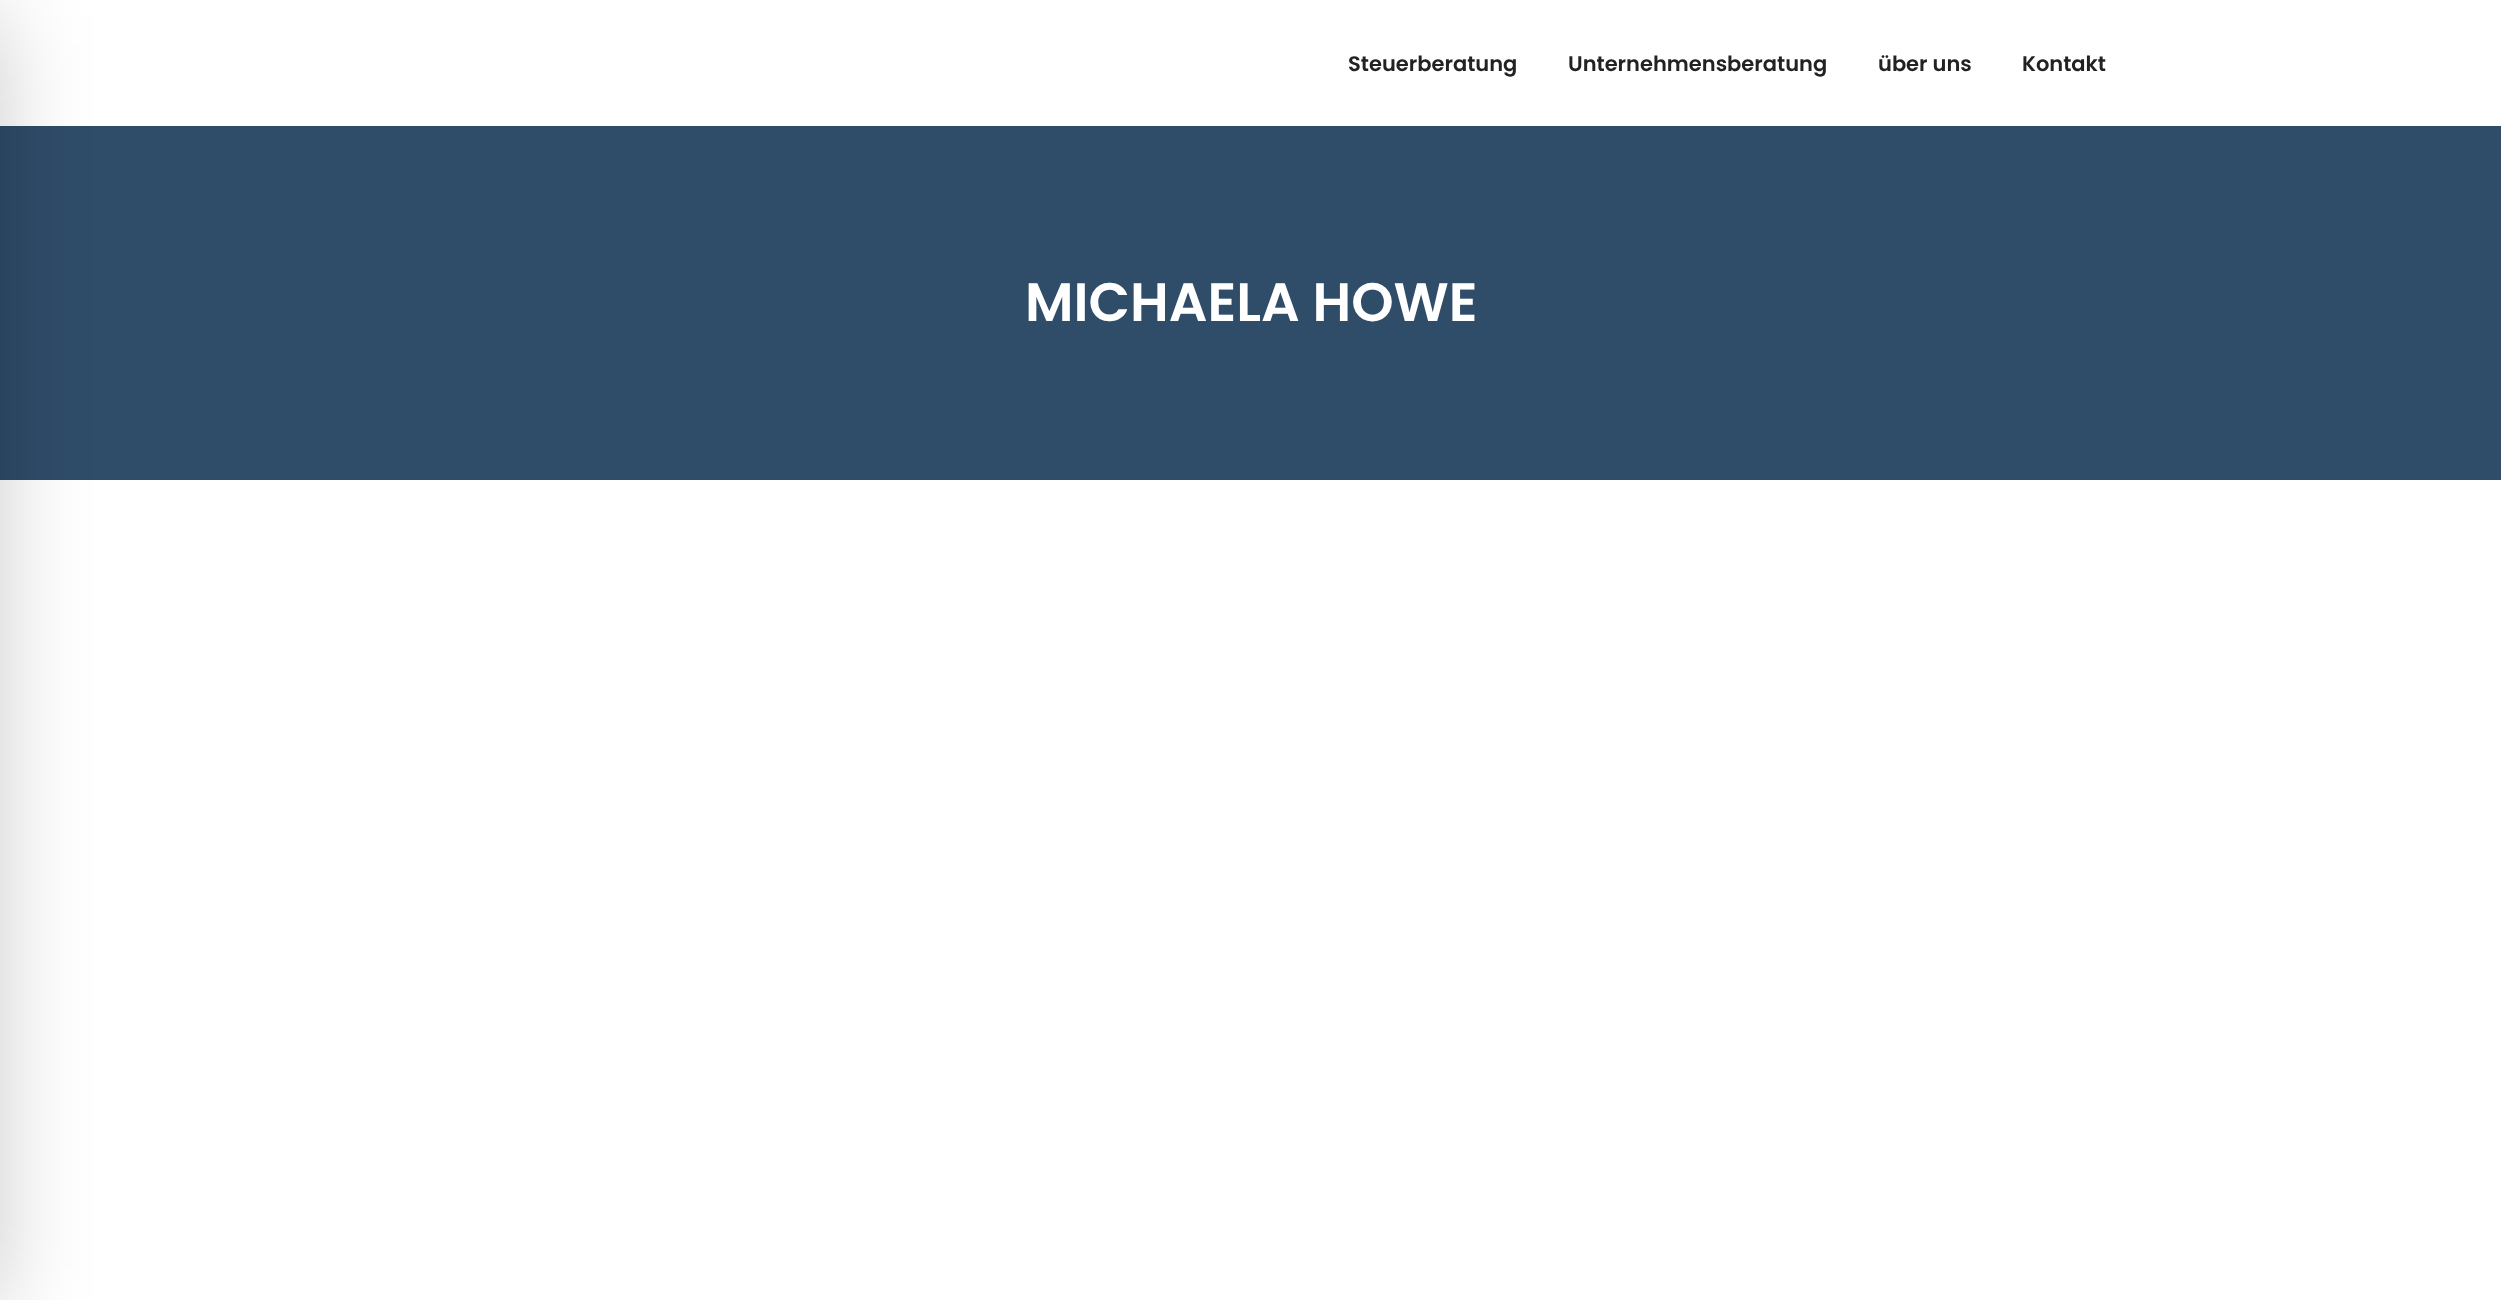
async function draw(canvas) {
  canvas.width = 2501;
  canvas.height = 1300;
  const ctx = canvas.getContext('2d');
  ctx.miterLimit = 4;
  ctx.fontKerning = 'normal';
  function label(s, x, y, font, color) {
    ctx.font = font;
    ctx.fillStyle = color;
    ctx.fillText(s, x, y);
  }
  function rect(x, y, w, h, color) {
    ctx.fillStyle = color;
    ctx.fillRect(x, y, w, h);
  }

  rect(0, 0, 2501, 1300, '#fff');
  rect(0, 126, 2501, 354, '#2f4c69');
  ctx.fillStyle = '#00000033';
  ctx.filter = 'blur(45px)';
  ctx.beginPath();
  ctx.rect(-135, 15, 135, 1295);
  ctx.fill();
  ctx.filter = 'none';
  label('Steuerberatung', 1348, 71, '600 21px Poppins', '#222');
  label('Unternehmensberatung', 1568, 71, '600 21px Poppins', '#222');
  label('über uns', 1878, 71, '600 21px Poppins', '#222');
  label('Kontakt', 2022, 71, '600 21px Poppins', '#222');
  label('MICHAELA HOWE', 1025, 321, '600 54px Poppins', '#fff');
}

draw(document.querySelector('canvas'));
